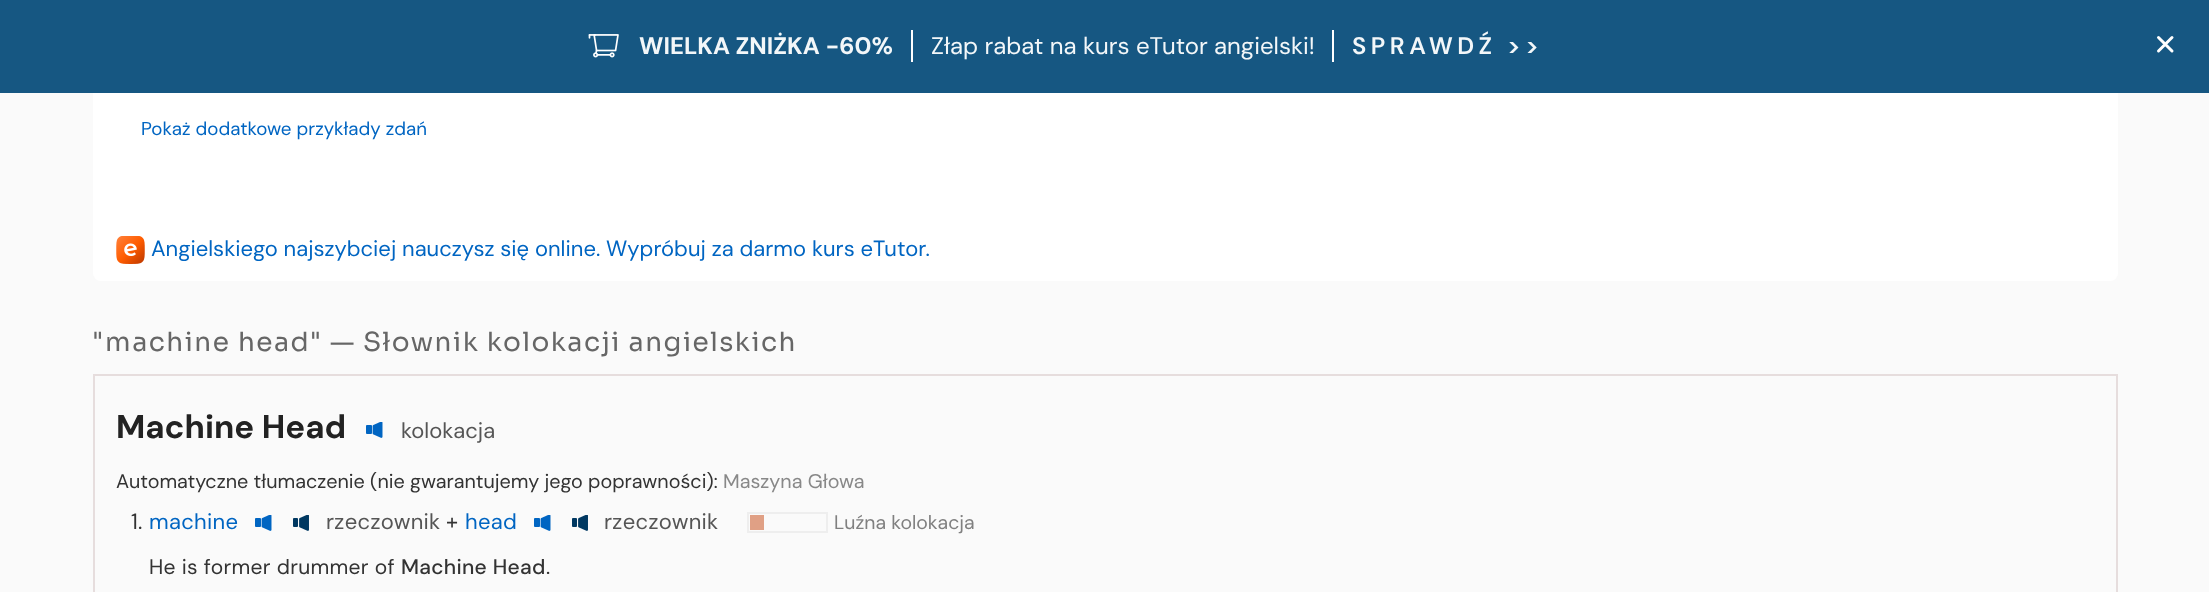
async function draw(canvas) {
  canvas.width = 2209;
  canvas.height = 592;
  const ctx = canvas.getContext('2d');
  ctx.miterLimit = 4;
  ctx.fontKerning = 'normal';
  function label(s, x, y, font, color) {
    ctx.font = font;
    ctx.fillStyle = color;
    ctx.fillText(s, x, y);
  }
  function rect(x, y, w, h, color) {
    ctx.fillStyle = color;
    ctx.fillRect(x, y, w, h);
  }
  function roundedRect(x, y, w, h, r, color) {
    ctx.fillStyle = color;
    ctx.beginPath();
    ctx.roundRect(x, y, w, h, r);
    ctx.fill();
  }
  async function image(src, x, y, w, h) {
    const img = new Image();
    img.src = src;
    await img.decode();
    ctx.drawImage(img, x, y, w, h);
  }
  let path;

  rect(0, 0, 2209, 592, '#fafafa');
  roundedRect(93, -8, 2025, 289, 8, '#fff');
  rect(0, 0, 2209, 93, '#165782');
  await image('assets/img1.png', 588, 34, 31, 24);
  label('WIELKA ZNIŻKA -60%', 639, 54, 'bold 24px DM Sans', '#f3f7f9');
  label('Złap rabat na kurs eTutor angielski!', 931, 54, '24px DM Sans', '#f3f7f9');
  rect(1332, 30, 2, 32, '#fff');
  rect(911, 30, 2, 32, '#fff');
  ctx.letterSpacing = '4.5px';
  label('SPRAWDŹ >>', 1352, 54, '600 24px DM Sans', '#f3f7f9');
  path = new Path2D('M2158.5 37.5L2172 51M2172 37.5L2158.5 51');
  ctx.strokeStyle = '#fff';
  ctx.lineWidth = 3;
  ctx.lineCap = 'round';
  ctx.stroke(path);
  ctx.letterSpacing = '0px';
  label('Pokaż dodatkowe przykłady zdań', 141, 135, '18.75px DM Sans', '#0065c2');
  await image('assets/img2.png', 116, 236, 29, 28);
  label('Angielskiego najszybciej nauczysz się online. Wypróbuj za darmo kurs eTutor.', 151, 256, '22px DM Sans', '#0065c2');
  ctx.letterSpacing = '1.5px';
  label('"machine head" — Słownik kolokacji angielskich', 92, 351, '26.4px Sora', '#666');
  ctx.strokeStyle = '#e6dddd';
  ctx.lineWidth = 2;
  ctx.strokeRect(94, 375, 2023, 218);
  ctx.letterSpacing = '0px';
  label('Machine Head', 116, 438, 'bold 33px DM Sans', '#222');
  await image('assets/img3.png', 366, 422, 17, 16);
  label('kolokacja', 401, 438, '22px DM Sans', '#555');
  label('Automatyczne tłumaczenie (nie gwarantujemy jego poprawności):', 116, 488, '19.8px DM Sans', '#333');
  label('Maszyna Głowa', 723, 488, '19.8px DM Sans', '#888');
  ctx.letterSpacing = '0.3px';
  label('1.', 131, 529, '22px DM Sans', '#333');
  label('machine', 149, 529, '22px DM Sans', '#0065c2');
  await image('assets/img3.png', 255, 515, 17, 16);
  await image('assets/img4.png', 293, 515, 16, 16);
  label('rzeczownik', 326, 529, '22px DM Sans', '#555');
  label('+', 446, 529, '22px DM Sans', '#333');
  label('head', 465, 529, '22px DM Sans', '#0065c2');
  await image('assets/img3.png', 534, 515, 17, 16);
  await image('assets/img4.png', 572, 515, 16, 16);
  label('rzeczownik', 604, 529, '22px DM Sans', '#555');
  ctx.strokeStyle = '#eee';
  ctx.strokeRect(748, 513, 79, 19);
  rect(750, 515, 14, 15, '#e0a085');
  ctx.letterSpacing = '0px';
  label('Luźna kolokacja', 834, 529, '19.5px DM Sans', '#808080');
  ctx.letterSpacing = '0.3px';
  label('He is former drummer of', 149, 574, '21px DM Sans', '#333');
  label('Machine Head', 401, 574, '500 21px DM Sans', '#333');
  label('.', 546, 574, '21px DM Sans', '#333');
}

draw(document.querySelector('canvas'));
